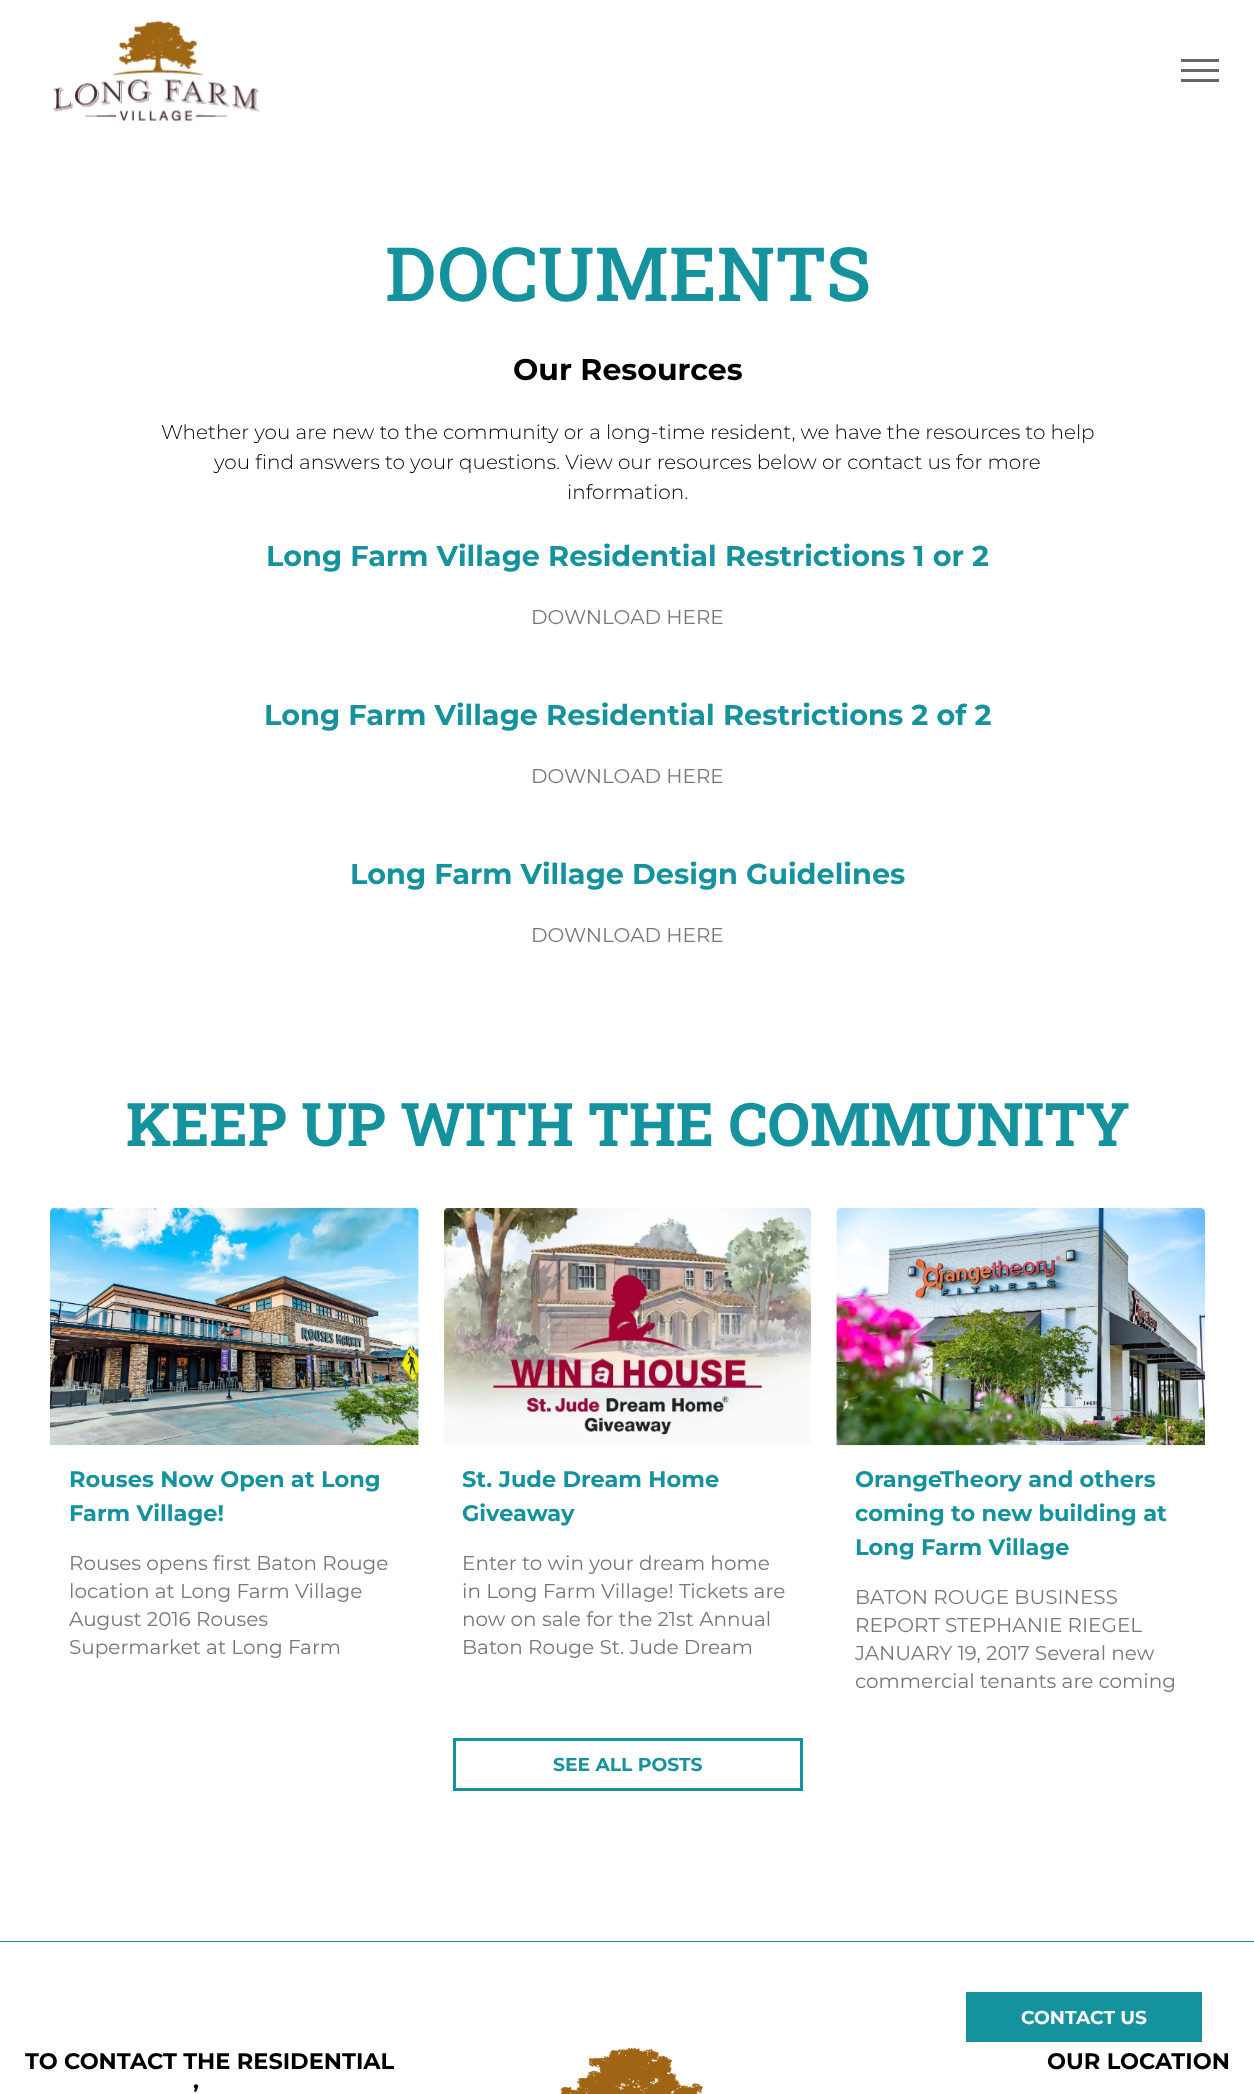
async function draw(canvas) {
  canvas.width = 1254;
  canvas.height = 2094;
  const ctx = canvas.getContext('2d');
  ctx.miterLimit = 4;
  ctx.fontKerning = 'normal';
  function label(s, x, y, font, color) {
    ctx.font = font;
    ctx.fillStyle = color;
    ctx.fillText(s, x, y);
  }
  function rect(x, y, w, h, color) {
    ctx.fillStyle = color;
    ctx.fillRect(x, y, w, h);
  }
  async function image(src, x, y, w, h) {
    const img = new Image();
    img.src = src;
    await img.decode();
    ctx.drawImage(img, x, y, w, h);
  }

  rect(0, 0, 1254, 2094, '#fff');
  await image('assets/img1.png', 53, 20, 207, 101);
  label(':', 125, 59, 'bold 24px Liberation Sans', '#fbf8f5');
  rect(1181, 59, 38, 3, '#666');
  rect(1181, 69, 38, 3, '#666');
  rect(1181, 79, 38, 3, '#666');
  label('DOCUMENTS', 385, 301, '500 75px Roboto Slab', '#14939f');
  label('Our Resources', 513, 380, 'bold 30px Montserrat', '#000');
  label('Whether you are new to the community or a long-time resident, we have the resources to help', 161, 439, '300 20px Montserrat', '#000');
  label('you find answers to your questions. View our resources below or contact us for more', 214, 469, '300 20px Montserrat', '#000');
  label('information.', 567, 499, '300 20px Montserrat', '#000');
  label('Long Farm Village Residential Restrictions 1 or 2', 266, 566, 'bold 28.75px Montserrat', '#14939f');
  label('DOWNLOAD HERE', 531, 624, '20px Montserrat', '#777');
  label('Long Farm Village Residential Restrictions 2 of 2', 264, 725, 'bold 28.75px Montserrat', '#14939f');
  label('DOWNLOAD HERE', 531, 783, '20px Montserrat', '#777');
  label('Long Farm Village Design Guidelines', 350, 884, 'bold 28.75px Montserrat', '#14939f');
  label('DOWNLOAD HERE', 531, 942, '20px Montserrat', '#777');
  label('KEEP UP WITH THE COMMUNITY', 126, 1146, 'bold 60px Roboto Slab', '#14939f');
  await image('assets/img2.png', 50, 1208, 369, 238);
  label('Rouses Now Open at Long', 69, 1487, 'bold 22.5px Montserrat', '#14939f');
  label('Farm Village!', 69, 1521, 'bold 22.5px Montserrat', '#14939f');
  label('Rouses opens first Baton Rouge', 69, 1570, '20px Montserrat', '#777');
  label('location at Long Farm Village', 69, 1598, '20px Montserrat', '#777');
  label('August 2016 Rouses', 69, 1626, '20px Montserrat', '#777');
  label('Supermarket at Long Farm', 69, 1654, '20px Montserrat', '#777');
  await image('assets/img3.png', 444, 1208, 367, 237);
  label('St. Jude Dream Home', 462, 1487, 'bold 22.5px Montserrat', '#14939f');
  label('Giveaway', 462, 1521, 'bold 22.5px Montserrat', '#14939f');
  label('Enter to win your dream home', 462, 1570, '20px Montserrat', '#777');
  label('in Long Farm Village! Tickets are', 462, 1598, '20px Montserrat', '#777');
  label('now on sale for the 21st Annual', 462, 1626, '20px Montserrat', '#777');
  label('Baton Rouge St. Jude Dream', 462, 1654, '20px Montserrat', '#777');
  await image('assets/img4.png', 836, 1208, 369, 238);
  label('OrangeTheory and others', 855, 1487, 'bold 22.5px Montserrat', '#14939f');
  label('coming to new building at', 855, 1521, 'bold 22.5px Montserrat', '#14939f');
  label('Long Farm Village', 855, 1555, 'bold 22.5px Montserrat', '#14939f');
  label('BATON ROUGE BUSINESS', 855, 1604, '20px Montserrat', '#777');
  label('REPORT STEPHANIE RIEGEL', 855, 1632, '20px Montserrat', '#777');
  label('JANUARY 19, 2017 Several new', 855, 1660, '20px Montserrat', '#777');
  label('commercial tenants are coming', 855, 1688, '20px Montserrat', '#777');
  ctx.strokeStyle = '#14939f';
  ctx.lineWidth = 3;
  ctx.strokeRect(454.5, 1739.5, 347, 50);
  label('SEE ALL POSTS', 553, 1771, 'bold 18.75px Montserrat', '#14939f');
  rect(966, 1992, 236, 50, '#14939f');
  label('CONTACT US', 1021, 2024, 'bold 18.75px Montserrat', '#fff');
  rect(0, 1941, 1254, 1, '#14939f');
  label('TO CONTACT THE RESIDENTIAL', 25, 2069, 'bold 22.5px Montserrat', '#000');
  label('’', 193, 2101, 'bold 22.5px Montserrat', '#000');
  await image('assets/img5.png', 560, 2047, 143, 47);
  label('OUR LOCATION', 1047, 2069, 'bold 22.5px Montserrat', '#000');
}

draw(document.querySelector('canvas'));
